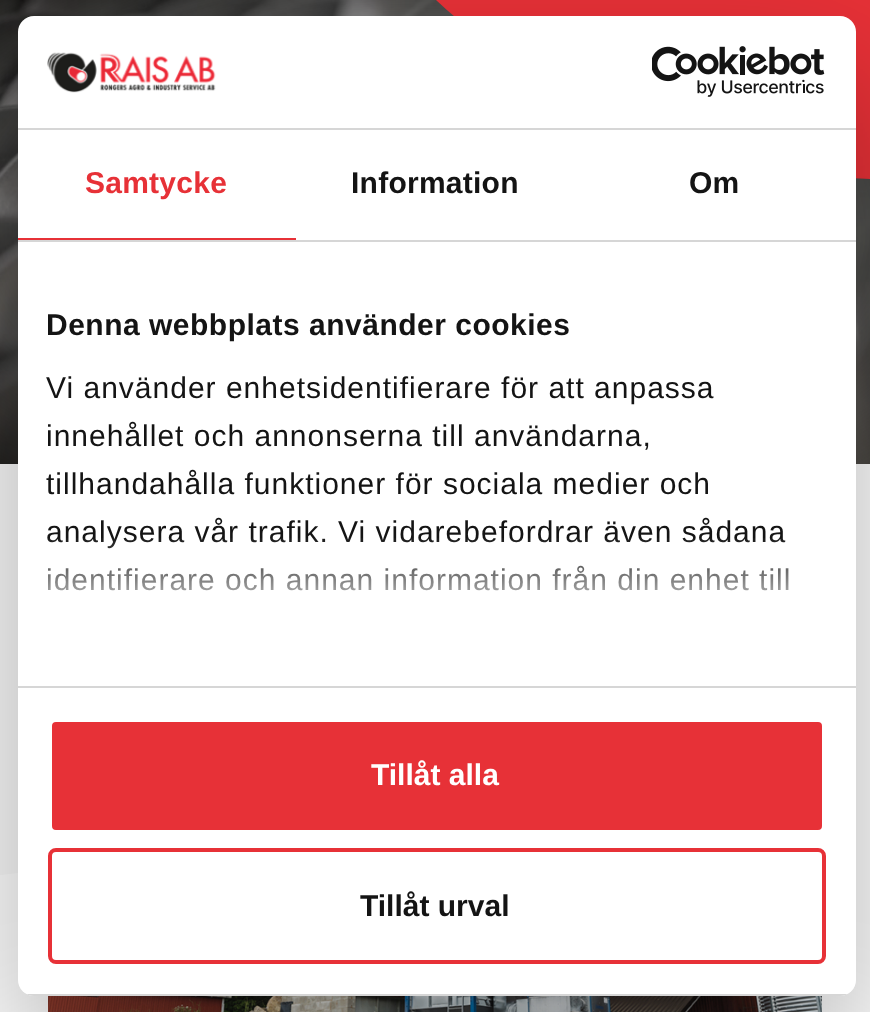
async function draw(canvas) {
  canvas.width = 870;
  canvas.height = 1012;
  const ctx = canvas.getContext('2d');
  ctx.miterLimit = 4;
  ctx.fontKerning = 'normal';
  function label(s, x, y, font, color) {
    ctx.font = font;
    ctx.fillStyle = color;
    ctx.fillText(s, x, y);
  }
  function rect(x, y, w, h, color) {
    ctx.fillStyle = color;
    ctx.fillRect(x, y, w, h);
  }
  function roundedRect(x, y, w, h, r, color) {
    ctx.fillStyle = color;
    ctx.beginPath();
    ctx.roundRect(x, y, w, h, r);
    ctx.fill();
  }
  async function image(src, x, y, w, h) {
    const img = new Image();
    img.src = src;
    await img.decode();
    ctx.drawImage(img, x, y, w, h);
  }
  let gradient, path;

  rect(0, 0, 870, 1012, '#fff');
  await image('assets/img1.png', 0, 0, 870, 464);
  ctx.fillStyle = '#e73137';
  path = new Path2D('M436 0H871V179C703 174 551 107 436 0Z');
  ctx.fill(path);
  ctx.save();
  ctx.beginPath();
  ctx.rect(0, 464, 435, 441);
  ctx.clip();
  ctx.fillStyle = '#fafafa';
  ctx.beginPath();
  ctx.arc(-41.5, 419, 458, 0, 2 * Math.PI);
  ctx.fill();
  ctx.restore();
  await image('assets/img2.png', 48, 996, 774, 16);
  ctx.fillStyle = '#0000004d';
  ctx.filter = 'blur(68px)';
  ctx.beginPath();
  ctx.roundRect(18, 80, 838, 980, 16);
  ctx.fill();
  ctx.filter = 'none';
  roundedRect(18, 16, 838, 980, 16, '#fff');
  rect(18, 128, 838, 2, '#d6d6d6');
  await image('assets/img3.png', 47, 52, 169, 41);
  await image('assets/img4.png', 652, 46, 173, 51);
  rect(18, 240, 838, 2, '#d6d6d6');
  rect(18, 238, 278, 2, '#e73137');
  ctx.letterSpacing = '0.25px';
  label('Samtycke', 85, 193, 'bold 30px Liberation Sans', '#e73137');
  label('Information', 351, 193, 'bold 30px Liberation Sans', '#141414');
  label('Om', 689, 193, 'bold 30px Liberation Sans', '#141414');
  rect(18, 686, 838, 2, '#d6d6d6');
  ctx.letterSpacing = '0.5px';
  label('Denna webbplats använder cookies', 46, 335, 'bold 30px Liberation Sans', '#141414');
  ctx.letterSpacing = '1px';
  label('Vi använder enhetsidentifierare för att anpassa', 46, 398, '30px Liberation Sans', '#141414');
  label('innehållet och annonserna till användarna,', 46, 446, '30px Liberation Sans', '#141414');
  label('tillhandahålla funktioner för sociala medier och', 46, 494, '30px Liberation Sans', '#141414');
  label('analysera vår trafik. Vi vidarebefordrar även sådana', 46, 542, '30px Liberation Sans', '#141414');
  label('identifierare och annan information från din enhet till', 46, 590, '30px Liberation Sans', '#141414');
  gradient = ctx.createLinearGradient(423, 686, 423, 536);
  gradient.addColorStop(0, '#fff');
  gradient.addColorStop(0.5, '#ffffffcc');
  gradient.addColorStop(1, '#ffffff00');
  ctx.fillStyle = gradient;
  ctx.fillRect(47, 538, 742, 53);
  ctx.save();
  ctx.beginPath();
  ctx.roundRect(18, 16, 838, 980, 16);
  ctx.clip();
  rect(18, 994, 838, 2, '#d6d6d6');
  ctx.restore();
  ctx.fillStyle = '#e73137';
  ctx.beginPath();
  ctx.roundRect(50, 720, 774, 112, 6);
  ctx.fill();
  ctx.strokeStyle = '#fff';
  ctx.lineWidth = 4;
  ctx.stroke();
  ctx.letterSpacing = '0px';
  label('Tillåt alla', 371, 785, 'bold 30px Liberation Sans', '#fff');
  ctx.beginPath();
  ctx.roundRect(50, 850, 774, 112, 6);
  ctx.strokeStyle = '#e73137';
  ctx.stroke();
  label('Tillåt urval', 360, 916, 'bold 30px Liberation Sans', '#141414');
}

draw(document.querySelector('canvas'));
